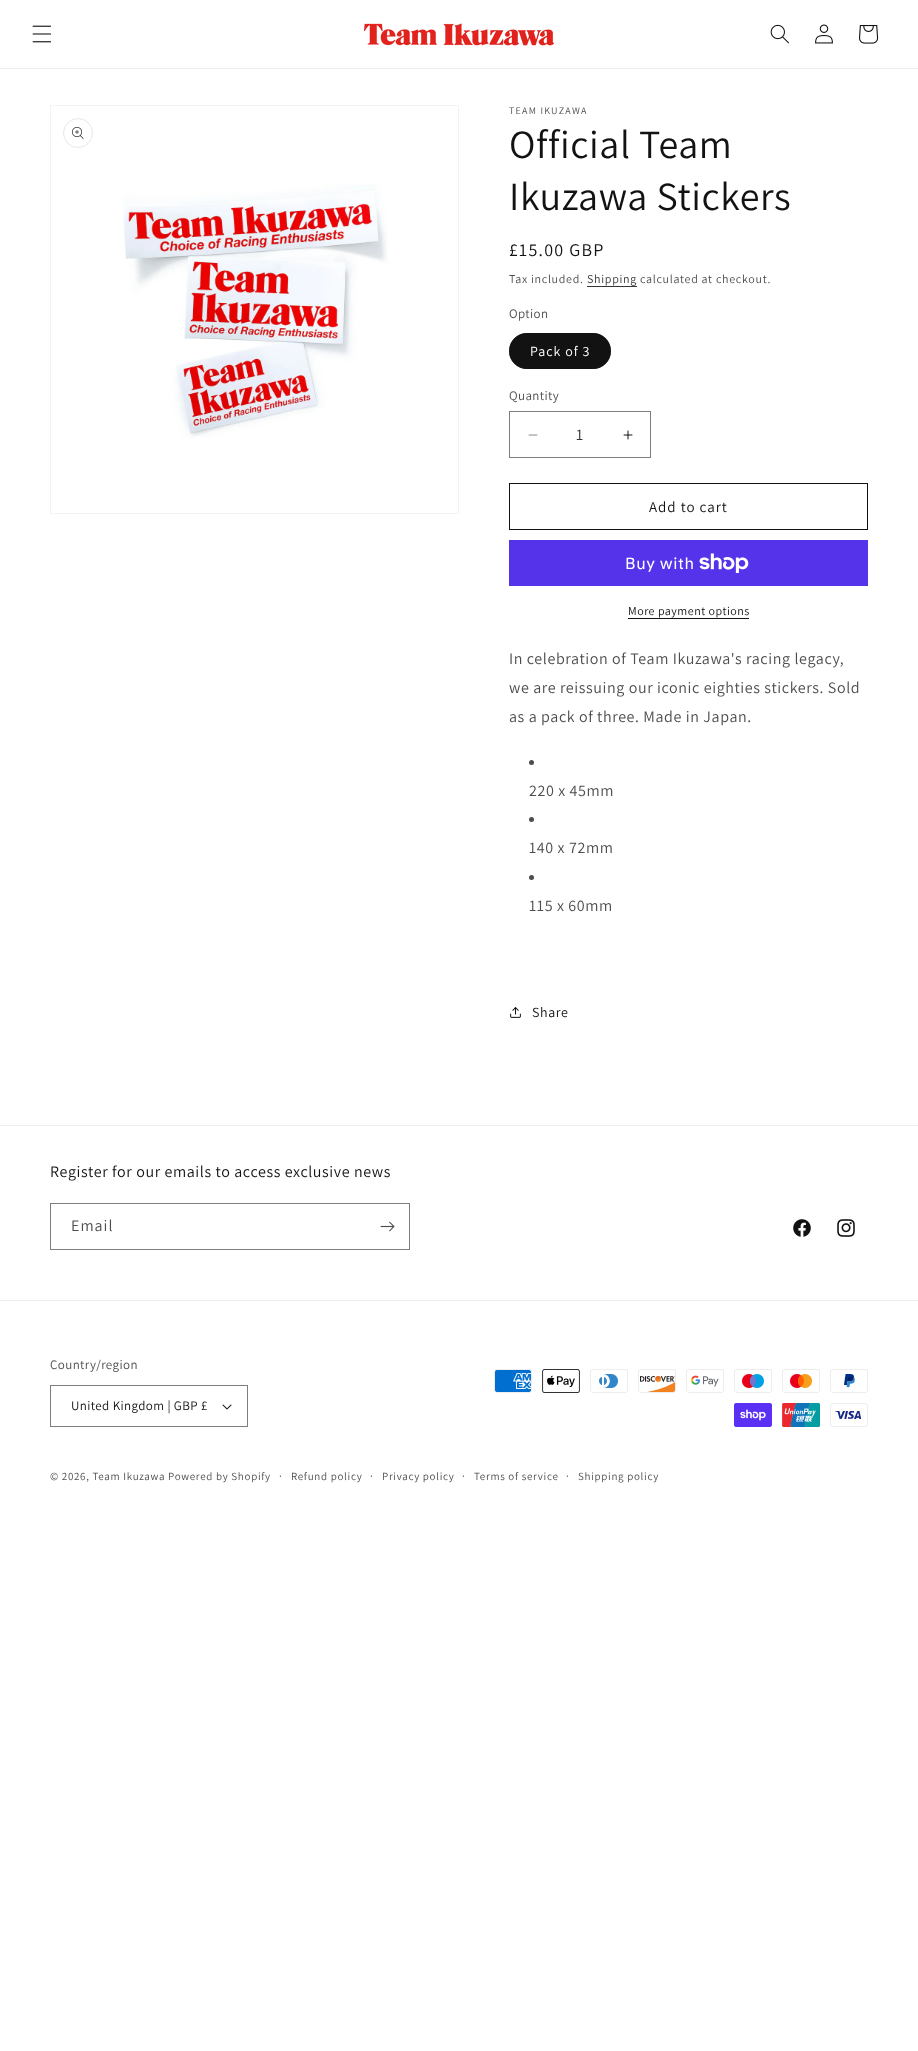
async function draw(canvas) {
  canvas.width = 918;
  canvas.height = 2051;
  const ctx = canvas.getContext('2d');
  ctx.miterLimit = 4;
  ctx.fontKerning = 'normal';
  function label(s, x, y, font, color) {
    ctx.font = font;
    ctx.fillStyle = color;
    ctx.fillText(s, x, y);
  }
  function rect(x, y, w, h, color) {
    ctx.fillStyle = color;
    ctx.fillRect(x, y, w, h);
  }
  function roundedRect(x, y, w, h, r, color) {
    ctx.fillStyle = color;
    ctx.beginPath();
    ctx.roundRect(x, y, w, h, r);
    ctx.fill();
  }
  async function image(src, x, y, w, h) {
    const img = new Image();
    img.src = src;
    await img.decode();
    ctx.drawImage(img, x, y, w, h);
  }

  rect(0, 0, 918, 2051, '#fff');
  rect(0, 68, 918, 1, '#ececec');
  await image('assets/img1.png', 32, 25, 20, 18);
  await image('assets/img2.png', 364, 23, 190, 23);
  await image('assets/img3.png', 770, 24, 19, 20);
  await image('assets/img4.png', 815, 24, 18, 20);
  await image('assets/img5.png', 859, 25, 20, 19);
  ctx.strokeStyle = '#f3f3f3';
  ctx.strokeRect(50.5, 105.5, 408, 408);
  ctx.beginPath();
  ctx.arc(78, 133, 14.5, 0, 2 * Math.PI);
  ctx.strokeStyle = '#e7e7e7';
  ctx.stroke();
  await image('assets/img6.png', 72, 127, 12, 12);
  await image('assets/img7.png', 123, 184, 265, 254);
  ctx.letterSpacing = '1.25px';
  label('TEAM IKUZAWA', 509, 114, '10px Assistant', '#4d4d4d');
  ctx.letterSpacing = '0.6px';
  label('Official Team', 509, 158, '40px Assistant', '#121212');
  label('Ikuzawa Stickers', 509, 210, '40px Assistant', '#121212');
  ctx.letterSpacing = '1.25px';
  label('£15.00 GBP', 509, 256, '18px Assistant', '#121212');
  ctx.letterSpacing = '0.7px';
  label('Tax included.', 509, 283, '12px Assistant', '#4d4d4d');
  label('Shipping', 587, 283, '12px Assistant', '#363636');
  rect(587, 286, 50, 1, '#363636');
  label('calculated at checkout.', 640, 283, '12px Assistant', '#4d4d4d');
  ctx.letterSpacing = '0.4px';
  label('Option', 509, 318, '13px Assistant', '#4d4d4d');
  roundedRect(509, 333, 102, 36, 18, '#121212');
  ctx.beginPath();
  ctx.roundRect(509.5, 333.5, 101, 35, 17.5);
  ctx.strokeStyle = '#1212128c';
  ctx.stroke();
  ctx.letterSpacing = '1px';
  label('Pack of 3', 530, 356, '14px Assistant', '#fff');
  ctx.letterSpacing = '0.4px';
  label('Quantity', 509, 400, '13px Assistant', '#4d4d4d');
  await image('assets/img8.png', 528, 434, 10, 2);
  await image('assets/img9.png', 623, 430, 10, 10);
  ctx.strokeStyle = '#7d7d7d';
  ctx.strokeRect(509.5, 411.5, 141, 46);
  ctx.letterSpacing = '0px';
  label('1', 576, 440, '16px Assistant', '#363636');
  ctx.strokeStyle = '#121212';
  ctx.strokeRect(509.5, 483.5, 358, 46);
  ctx.letterSpacing = '1px';
  label('Add to cart', 649, 512, '15px Assistant', '#121212');
  rect(509, 540, 359, 46, '#5433eb');
  ctx.letterSpacing = '0.6px';
  label('Buy with', 625, 569, '16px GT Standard', '#fff');
  await image('assets/img10.png', 699, 553, 50, 20);
  ctx.letterSpacing = '0.5px';
  label('More payment options', 628, 615, '12px Assistant', '#121212');
  rect(628, 618, 121, 1, '#121212');
  ctx.letterSpacing = '0.6px';
  label('In celebration of Team Ikuzawa\'s racing legacy,', 509, 664, '16px Assistant', '#4d4d4d');
  label('we are reissuing our iconic eighties stickers. Sold', 509, 693, '16px Assistant', '#4d4d4d');
  label('as a pack of three. Made in Japan.', 509, 722, '16px Assistant', '#4d4d4d');
  ctx.beginPath();
  ctx.arc(531.5, 762.5, 2.5, 0, 2 * Math.PI);
  ctx.fill();
  label('220 x 45mm', 529, 796, '16px Assistant', '#4d4d4d');
  ctx.beginPath();
  ctx.arc(531.5, 819.5, 2.5, 0, 2 * Math.PI);
  ctx.fill();
  label('140 x 72mm', 529, 853, '16px Assistant', '#4d4d4d');
  ctx.beginPath();
  ctx.arc(531.5, 877.5, 2.5, 0, 2 * Math.PI);
  ctx.fill();
  label('115 x 60mm', 529, 911, '16px Assistant', '#4d4d4d');
  await image('assets/img11.png', 510, 1007, 11, 11);
  label('Share', 532, 1017, '14px Assistant', '#121212');
  rect(0, 1125, 918, 1, '#ececec');
  label('Register for our emails to access exclusive news', 50, 1177, '16px Assistant', '#121212');
  ctx.strokeStyle = '#7d7d7d';
  ctx.strokeRect(50.5, 1203.5, 359, 46);
  ctx.letterSpacing = '1px';
  label('Email', 71, 1231, '16px Assistant', '#4d4d4d');
  await image('assets/img12.png', 380, 1221, 15, 11);
  await image('assets/img13.png', 793, 1219, 18, 18);
  await image('assets/img14.png', 837, 1219, 18, 18);
  rect(0, 1300, 918, 1, '#ececec');
  ctx.letterSpacing = '0.4px';
  label('Country/region', 50, 1369, '13px Assistant', '#4d4d4d');
  await image('assets/img15.png', 222, 1404, 10, 6);
  ctx.strokeRect(50.5, 1385.5, 197, 41);
  label('United Kingdom | GBP £', 71, 1410, '13px Assistant', '#121212');
  await image('assets/img16.png', 494, 1369, 38, 24);
  await image('assets/img17.png', 542, 1369, 38, 24);
  await image('assets/img18.png', 590, 1369, 38, 24);
  await image('assets/img19.png', 638, 1369, 38, 24);
  await image('assets/img20.png', 686, 1369, 38, 24);
  await image('assets/img21.png', 734, 1369, 38, 24);
  await image('assets/img22.png', 782, 1369, 38, 24);
  await image('assets/img23.png', 830, 1369, 38, 24);
  await image('assets/img24.png', 734, 1403, 38, 24);
  await image('assets/img25.png', 782, 1403, 38, 24);
  await image('assets/img26.png', 830, 1403, 38, 24);
  ctx.letterSpacing = '0.7px';
  label('© 2026, Team Ikuzawa Powered by Shopify', 50, 1480, '11px Assistant', '#4d4d4d');
  label('·', 279, 1480, '12px Assistant', '#4d4d4d');
  label('Refund policy', 291, 1480, '11px Assistant', '#4d4d4d');
  label('·', 370, 1480, '12px Assistant', '#4d4d4d');
  label('Privacy policy', 382, 1480, '11px Assistant', '#4d4d4d');
  label('·', 462, 1480, '12px Assistant', '#4d4d4d');
  label('Terms of service', 474, 1480, '11px Assistant', '#4d4d4d');
  label('·', 566, 1480, '12px Assistant', '#4d4d4d');
  label('Shipping policy', 578, 1480, '11px Assistant', '#4d4d4d');
}

draw(document.querySelector('canvas'));
